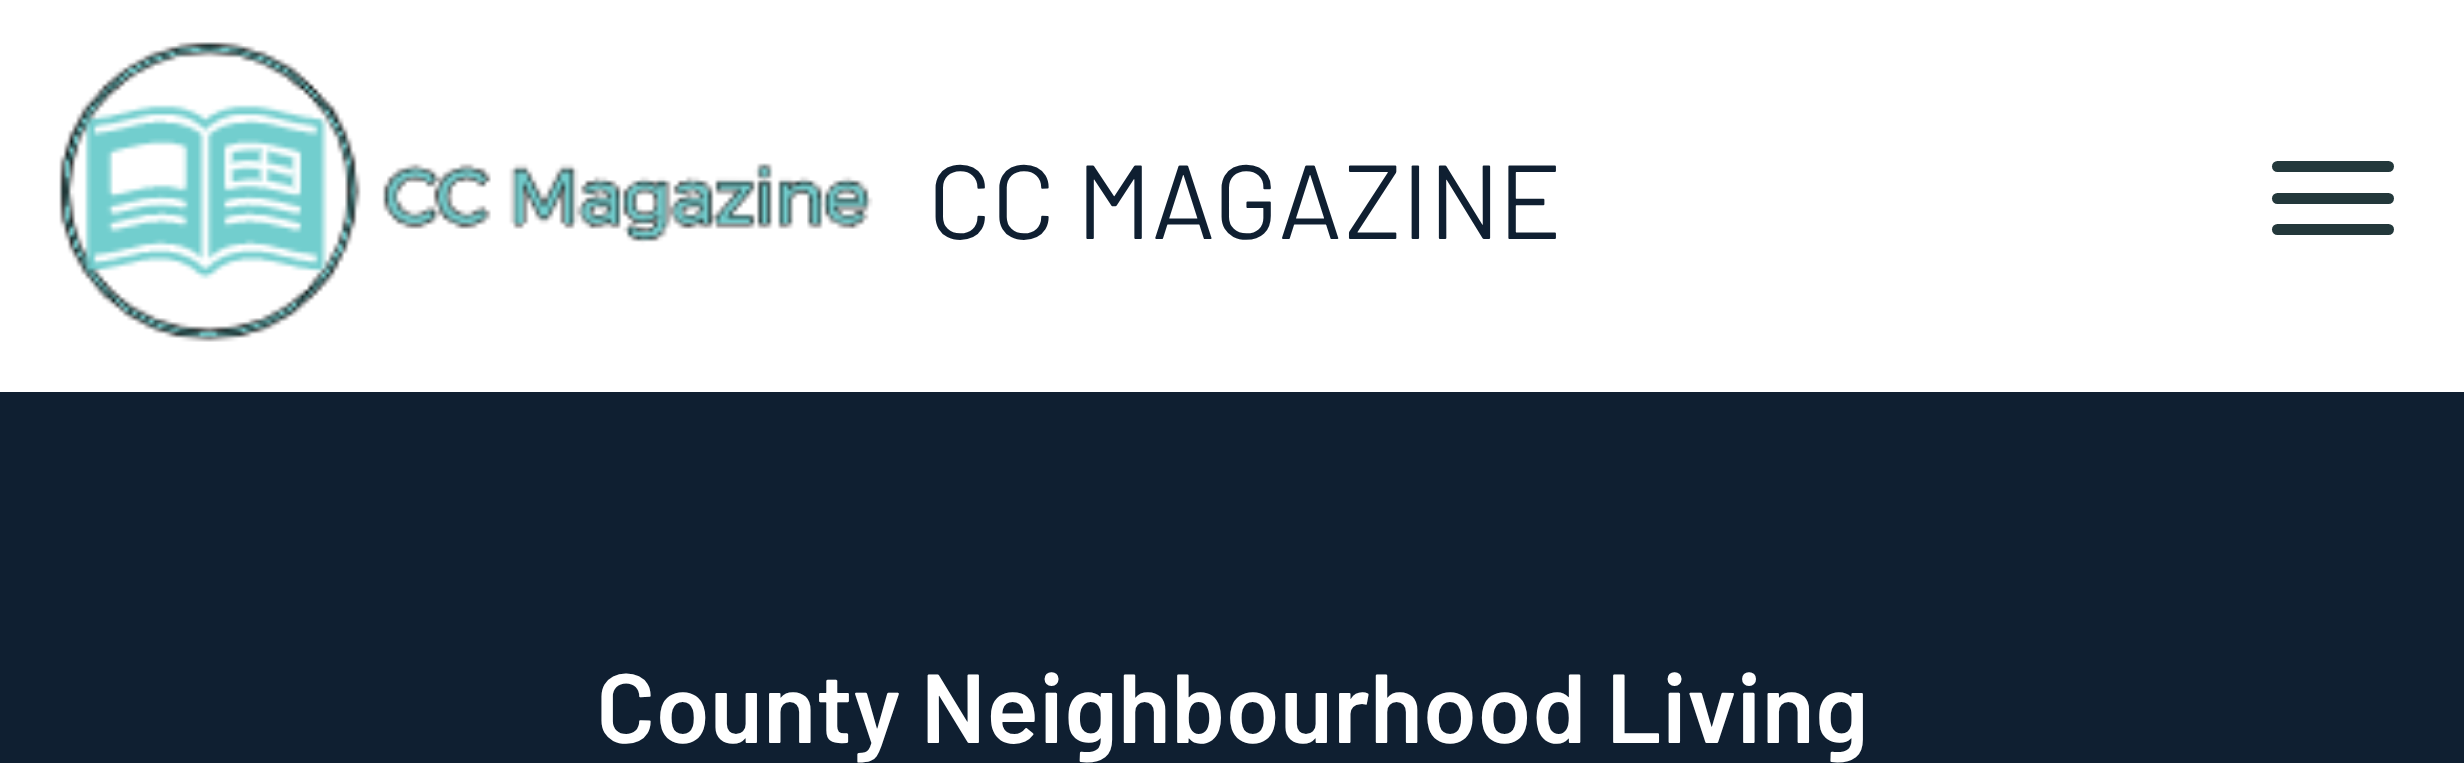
async function draw(canvas) {
  canvas.width = 2464;
  canvas.height = 763;
  const ctx = canvas.getContext('2d');
  ctx.miterLimit = 4;
  ctx.fontKerning = 'normal';
  function label(s, x, y, font, color) {
    ctx.font = font;
    ctx.fillStyle = color;
    ctx.fillText(s, x, y);
  }
  function rect(x, y, w, h, color) {
    ctx.fillStyle = color;
    ctx.fillRect(x, y, w, h);
  }
  function roundedRect(x, y, w, h, r, color) {
    ctx.fillStyle = color;
    ctx.beginPath();
    ctx.roundRect(x, y, w, h, r);
    ctx.fill();
  }
  async function image(src, x, y, w, h) {
    const img = new Image();
    img.src = src;
    await img.decode();
    ctx.drawImage(img, x, y, w, h);
  }

  rect(0, 0, 2464, 763, '#fff');
  await image('assets/img1.png', 59, 42, 814, 300);
  label('CC MAGAZINE', 928, 239, '105px Barlow', '#0f1f31');
  roundedRect(2272, 193, 122, 11, 5.5, '#23383b');
  roundedRect(2272, 161, 122, 11, 5.5, '#23383b');
  roundedRect(2272, 224, 122, 11, 5.5, '#23383b');
  rect(0, 392, 2464, 371, '#0f1f31');
  label('County Neighbourhood Living', 596, 743, '600 98px Barlow', '#fff');
}

draw(document.querySelector('canvas'));
